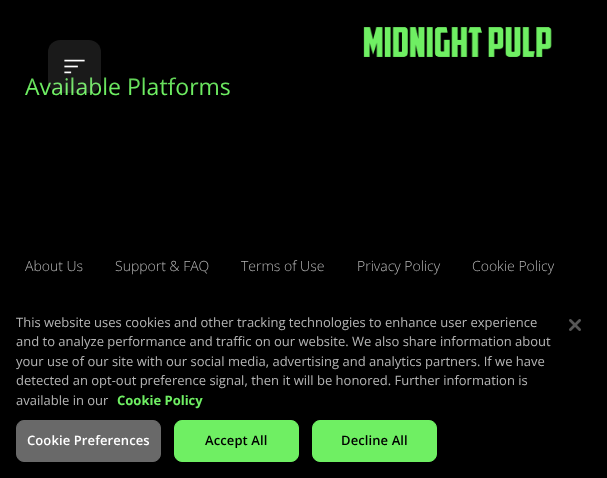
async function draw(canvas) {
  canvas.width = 607;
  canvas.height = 478;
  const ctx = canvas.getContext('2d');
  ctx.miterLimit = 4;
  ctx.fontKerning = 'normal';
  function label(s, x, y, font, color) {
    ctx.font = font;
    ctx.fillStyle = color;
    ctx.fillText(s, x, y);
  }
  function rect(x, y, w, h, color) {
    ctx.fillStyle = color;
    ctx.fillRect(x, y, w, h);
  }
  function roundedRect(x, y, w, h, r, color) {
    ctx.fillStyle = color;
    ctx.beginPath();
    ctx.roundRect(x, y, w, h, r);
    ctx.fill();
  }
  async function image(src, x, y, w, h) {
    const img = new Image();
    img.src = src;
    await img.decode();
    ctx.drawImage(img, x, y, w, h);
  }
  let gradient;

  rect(0, 0, 607, 478, '#000');
  label('Available Platforms', 25, 95, '23px Open Sans', '#6fef63');
  gradient = ctx.createLinearGradient(304, 0, 304, 90);
  gradient.addColorStop(0.1, '#000000e6');
  gradient.addColorStop(1, '#00000000');
  ctx.fillStyle = gradient;
  ctx.fillRect(28, 77, 202, 11);
  roundedRect(48, 40, 53, 53, 12, '#ffffff1a');
  await image('assets/img1.png', 64, 59, 21, 15);
  await image('assets/img2.png', 363, 27, 189, 30);
  label('About Us', 25, 271, '300 14px Open Sans', '#b5b5b5');
  label('Support & FAQ', 115, 271, '300 14px Open Sans', '#b5b5b5');
  label('Terms of Use', 241, 271, '300 14px Open Sans', '#b5b5b5');
  label('Privacy Policy', 357, 271, '300 14px Open Sans', '#b5b5b5');
  label('Cookie Policy', 472, 271, '300 14px Open Sans', '#b5b5b5');
  label('This website uses cookies and other tracking technologies to enhance user experience', 16, 327, '13px Open Sans', '#b5b5b5');
  label('and to analyze performance and traffic on our website. We also share information about', 16, 346, '13px Open Sans', '#b5b5b5');
  label('your use of our site with our social media, advertising and analytics partners. If we have', 16, 366, '13px Open Sans', '#b5b5b5');
  label('detected an opt-out preference signal, then it will be honored. Further information is', 16, 385, '13px Open Sans', '#b5b5b5');
  label('available in our', 16, 405, '13px Open Sans', '#b5b5b5');
  label('Cookie Policy', 117, 405, 'bold 13px Open Sans', '#6fef63');
  ctx.fillStyle = '#696969';
  ctx.beginPath();
  ctx.roundRect(16.5, 420.5, 144, 41, 7.5);
  ctx.fill();
  ctx.strokeStyle = '#696969';
  ctx.stroke();
  ctx.letterSpacing = '0.1px';
  label('Cookie Preferences', 27, 445, '600 13px Open Sans', '#fff');
  ctx.fillStyle = '#6fef63';
  ctx.beginPath();
  ctx.roundRect(174.5, 420.5, 124, 41, 7.5);
  ctx.fill();
  ctx.strokeStyle = '#6fef63';
  ctx.stroke();
  label('Accept All', 205, 445, '600 13px Open Sans', '#000');
  ctx.fillStyle = '#6fef63';
  ctx.beginPath();
  ctx.roundRect(312.5, 420.5, 124, 41, 7.5);
  ctx.fill();
  ctx.stroke();
  label('Decline All', 341, 445, '600 13px Open Sans', '#000');
  await image('assets/img3.png', 569, 319, 12, 12);
}

draw(document.querySelector('canvas'));
